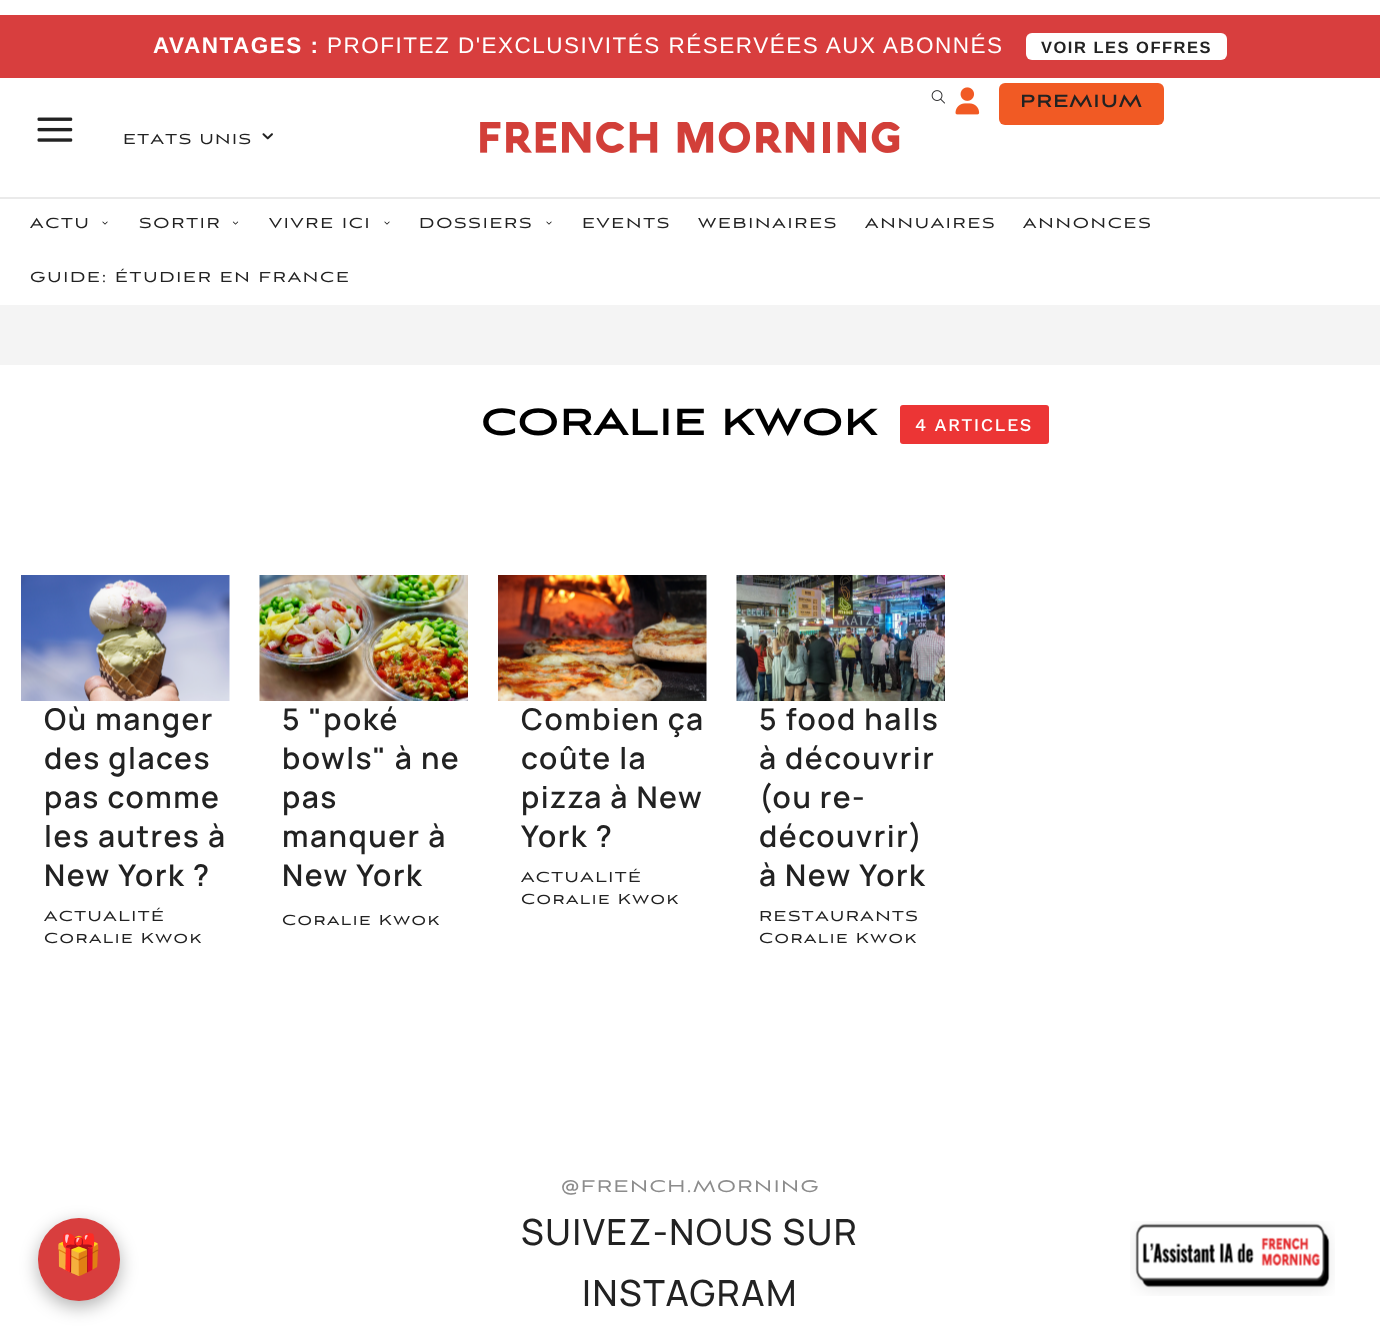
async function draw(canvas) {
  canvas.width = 1380;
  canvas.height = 1337;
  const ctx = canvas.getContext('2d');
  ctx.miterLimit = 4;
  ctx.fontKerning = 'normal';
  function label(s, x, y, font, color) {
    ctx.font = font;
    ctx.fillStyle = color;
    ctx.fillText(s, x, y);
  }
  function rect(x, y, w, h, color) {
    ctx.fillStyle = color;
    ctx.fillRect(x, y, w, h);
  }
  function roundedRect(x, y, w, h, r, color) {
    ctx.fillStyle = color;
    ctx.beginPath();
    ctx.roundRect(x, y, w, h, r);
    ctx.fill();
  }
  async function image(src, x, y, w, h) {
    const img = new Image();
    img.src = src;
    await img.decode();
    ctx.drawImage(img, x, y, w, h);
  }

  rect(0, 0, 1380, 1337, '#fff');
  rect(0, 15, 1380, 63, '#d83e3e');
  ctx.letterSpacing = '1.5px';
  label('AVANTAGES :', 153, 53, 'bold 22.5px Liberation Sans', '#fff');
  label('PROFITEZ D\'EXCLUSIVITÉS RÉSERVÉES AUX ABONNÉS', 327, 53, '22.5px Liberation Sans', '#fff');
  roundedRect(1026, 33, 201, 27, 6, '#fff');
  label('VOIR LES OFFRES', 1041, 53, 'bold 16.5px Liberation Sans', '#222');
  await image('assets/img1.png', 931, 90, 14, 14);
  await image('assets/img2.png', 955, 87, 25, 28);
  roundedRect(999, 83, 165, 42, 6, '#f15a24');
  label('PREMIUM', 1020, 107, 'bold 21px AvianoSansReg', '#222');
  await image('assets/img3.png', 37, 117, 36, 25);
  label('ETATS UNIS', 123, 144, '18px AvianoSansReg', '#222');
  await image('assets/img4.png', 262, 133, 11, 7);
  await image('assets/img5.png', 480, 122, 420, 31);
  rect(0, 197, 1380, 2, '#eaeaea');
  ctx.letterSpacing = '1.8px';
  label('ACTU', 30, 228, '18px AvianoSansReg', '#222');
  await image('assets/img6.png', 102, 221, 6, 4);
  label('SORTIR', 139, 228, '18px AvianoSansReg', '#222');
  await image('assets/img7.png', 232, 221, 7, 4);
  label('VIVRE ICI', 269, 228, '18px AvianoSansReg', '#222');
  await image('assets/img6.png', 384, 221, 6, 4);
  label('DOSSIERS', 419, 228, '18px AvianoSansReg', '#222');
  await image('assets/img6.png', 546, 221, 6, 4);
  label('EVENTS', 582, 228, '18px AvianoSansReg', '#222');
  label('WEBINAIRES', 698, 228, '18px AvianoSansReg', '#222');
  label('ANNUAIRES', 865, 228, '18px AvianoSansReg', '#222');
  label('ANNONCES', 1023, 228, '18px AvianoSansReg', '#222');
  label('GUIDE: ÉTUDIER EN FRANCE', 30, 282, '18px AvianoSansReg', '#222');
  rect(0, 305, 1380, 60, '#f4f4f4');
  ctx.letterSpacing = '1.5px';
  label('CORALIE KWOK', 481, 435, 'bold 45px AvianoSansReg', '#000');
  roundedRect(900, 405, 149, 39, 3, '#ec3535');
  label('4 ARTICLES', 915, 431, '500 18px Work Sans', '#fff');
  await image('assets/img8.png', 21, 575, 209, 126);
  label('Où manger', 44, 730, '600 30px Manrope', '#222');
  label('des glaces', 44, 769, '600 30px Manrope', '#222');
  label('pas comme', 44, 808, '600 30px Manrope', '#222');
  label('les autres à', 44, 847, '600 30px Manrope', '#222');
  label('New York ?', 44, 886, '600 30px Manrope', '#222');
  label('ACTUALITÉ', 44, 921, '18px AvianoSansReg', '#222');
  label('Coralie Kwok', 44, 943, '18px AvianoSansReg', '#222');
  await image('assets/img9.png', 259, 575, 209, 126);
  label('5 "poké', 282, 730, '600 30px Manrope', '#222');
  label('bowls" à ne', 282, 769, '600 30px Manrope', '#222');
  label('pas', 282, 808, '600 30px Manrope', '#222');
  label('manquer à', 282, 847, '600 30px Manrope', '#222');
  label('New York', 282, 886, '600 30px Manrope', '#222');
  label('Coralie Kwok', 282, 925, '18px AvianoSansReg', '#222');
  await image('assets/img10.png', 498, 575, 209, 126);
  label('Combien ça', 521, 730, '600 30px Manrope', '#222');
  label('coûte la', 521, 769, '600 30px Manrope', '#222');
  label('pizza à New', 521, 808, '600 30px Manrope', '#222');
  label('York ?', 521, 847, '600 30px Manrope', '#222');
  label('ACTUALITÉ', 521, 882, '18px AvianoSansReg', '#222');
  label('Coralie Kwok', 521, 904, '18px AvianoSansReg', '#222');
  await image('assets/img11.png', 736, 575, 209, 126);
  label('5 food halls', 759, 730, '600 30px Manrope', '#222');
  label('à découvrir', 759, 769, '600 30px Manrope', '#222');
  label('(ou re-', 759, 808, '600 30px Manrope', '#222');
  label('découvrir)', 759, 847, '600 30px Manrope', '#222');
  label('à New York', 759, 886, '600 30px Manrope', '#222');
  label('RESTAURANTS', 759, 921, '18px AvianoSansReg', '#222');
  label('Coralie Kwok', 759, 943, '18px AvianoSansReg', '#222');
  label('@FRENCH.MORNING', 561, 1192, '21px AvianoSansReg', '#8c8c8c');
  label('SUIVEZ-NOUS SUR', 521, 1245, '500 36px Manrope', '#222');
  label('INSTAGRAM', 582, 1306, '500 36px Manrope', '#222');
  await image('assets/img12.png', 1130, 1221, 205, 75);
  ctx.fillStyle = '#0000004d';
  ctx.filter = 'blur(9px)';
  ctx.beginPath();
  ctx.roundRect(38, 1224, 82, 83, 41);
  ctx.fill();
  ctx.filter = 'none';
  roundedRect(38, 1218, 82, 83, 41, '#d83e3e');
  label('🎁', 54, 1268, '39px Noto Color Emoji', '#fff');
}

draw(document.querySelector('canvas'));
